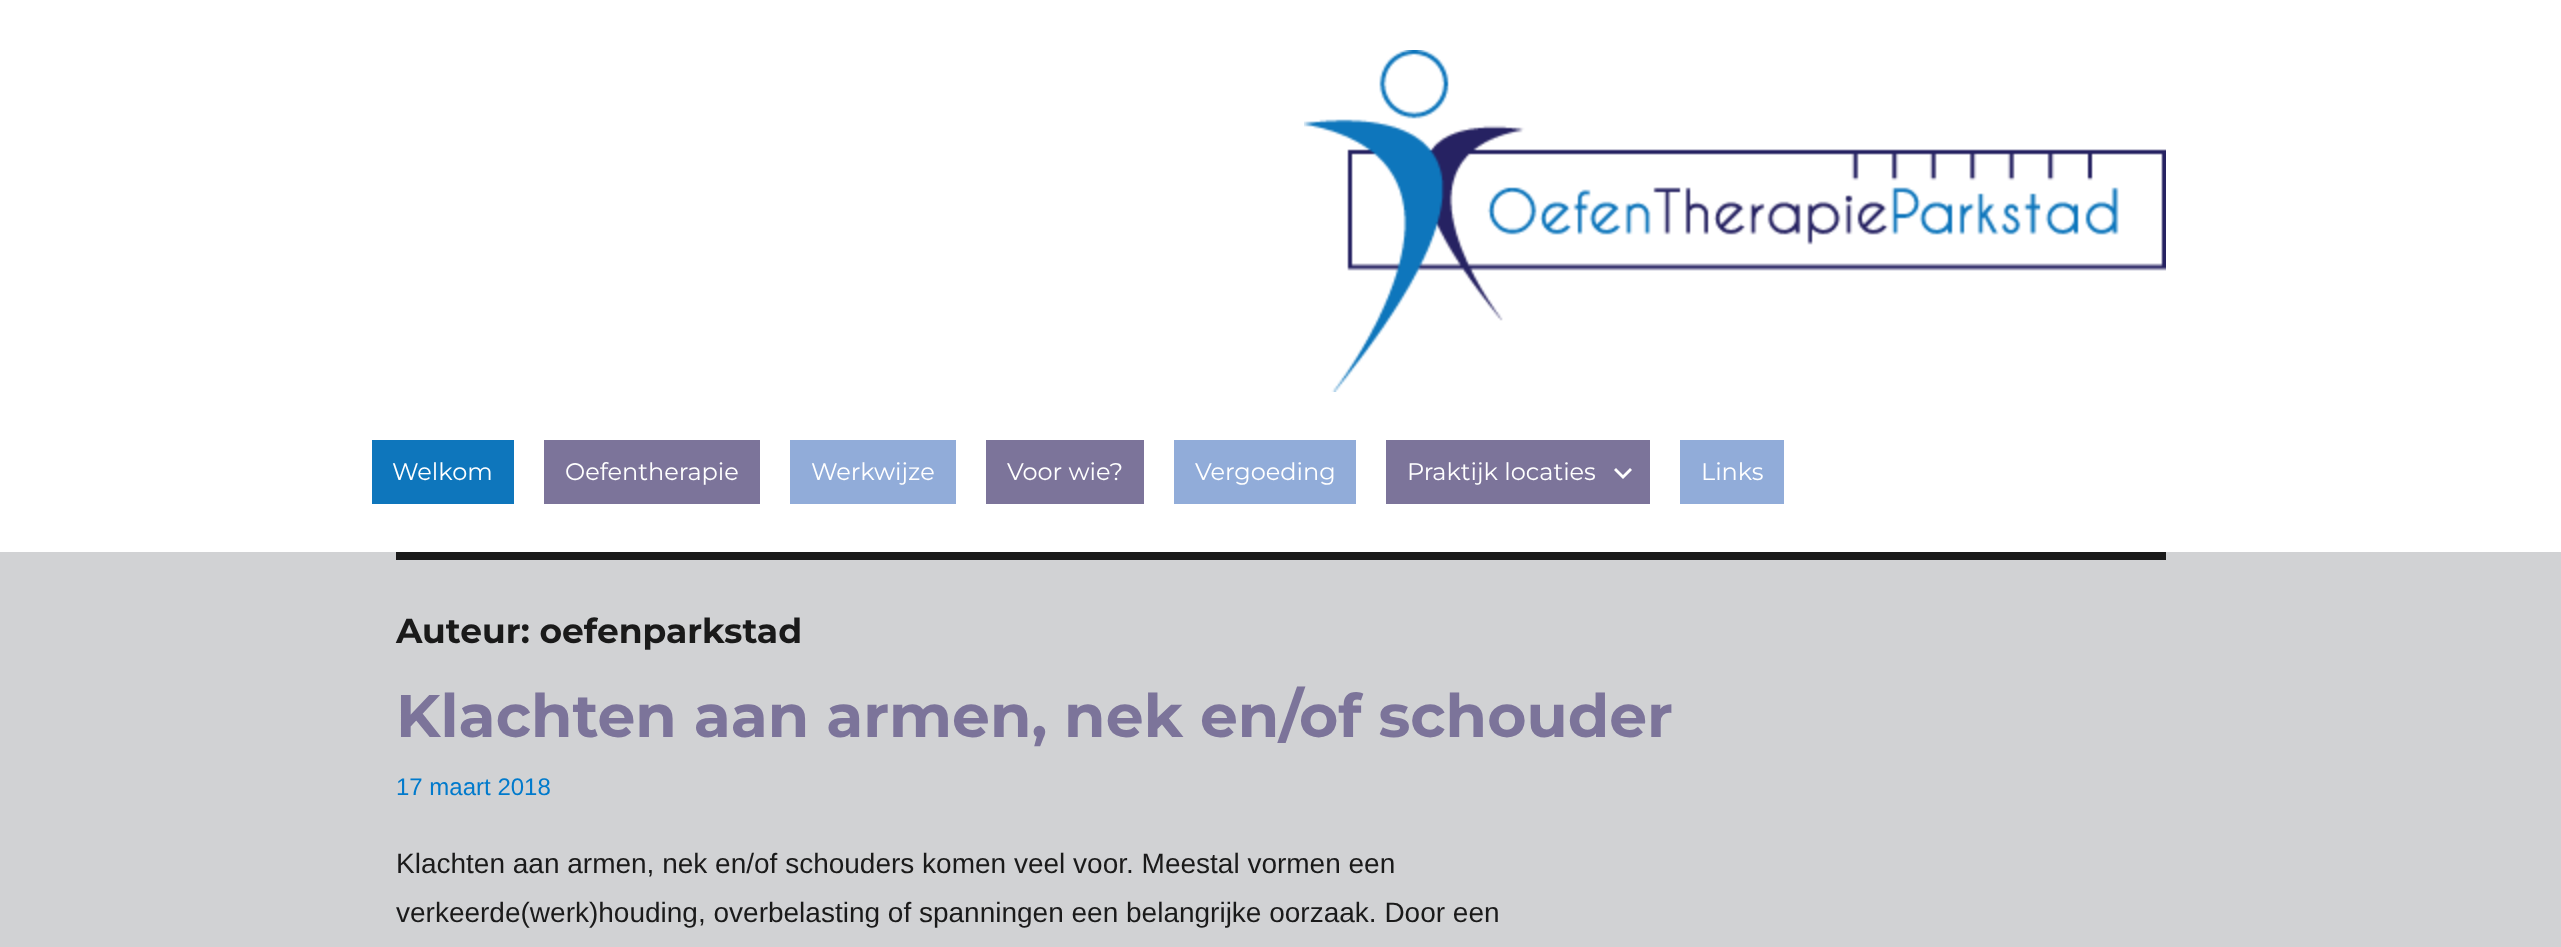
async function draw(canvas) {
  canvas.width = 2561;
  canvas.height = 947;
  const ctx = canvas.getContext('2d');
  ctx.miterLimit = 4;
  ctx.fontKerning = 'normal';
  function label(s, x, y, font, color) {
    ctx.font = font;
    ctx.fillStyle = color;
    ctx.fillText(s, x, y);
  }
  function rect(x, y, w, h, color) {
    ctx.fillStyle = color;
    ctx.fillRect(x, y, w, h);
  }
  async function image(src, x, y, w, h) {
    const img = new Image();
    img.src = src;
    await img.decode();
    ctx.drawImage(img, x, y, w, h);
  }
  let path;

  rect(0, 0, 2561, 947, '#fff');
  await image('assets/img1.png', 1304, 50, 862, 342);
  rect(372, 440, 142, 64, '#0e76bc');
  label('Welkom', 392, 480, '24px Montserrat', '#fff');
  rect(544, 440, 216, 64, '#7c749a');
  label('Oefentherapie', 565, 480, '24px Montserrat', '#fff');
  rect(790, 440, 166, 64, '#91acd9');
  label('Werkwijze', 811, 480, '24px Montserrat', '#fff');
  rect(986, 440, 158, 64, '#7c749a');
  label('Voor wie?', 1007, 480, '24px Montserrat', '#fff');
  rect(1174, 440, 182, 64, '#91acd9');
  label('Vergoeding', 1195, 480, '24px Montserrat', '#fff');
  rect(1386, 440, 264, 64, '#7c749a');
  label('Praktijk locaties', 1407, 480, '24px Montserrat', '#fff');
  path = new Path2D('M1630 468L1632 470L1623 479L1614 470L1616 468L1623 475Z');
  ctx.fill(path);
  rect(1680, 440, 104, 64, '#91acd9');
  label('Links', 1701, 480, '24px Montserrat', '#fff');
  rect(0, 552, 2561, 395, '#d1d2d4');
  rect(396, 552, 1770, 8, '#1a1a1a');
  label('Auteur: oefenparkstad', 396, 643, 'bold 34.5px Montserrat', '#1a1a1a');
  label('Klachten aan armen, nek en/of schouder', 396, 737, 'bold 60px Montserrat', '#7c749a');
  label('17 maart 2018', 396, 795, '24px Liberation Sans', '#007acc');
  label('Klachten aan armen, nek en/of schouders komen veel voor. Meestal vormen een', 396, 873, '28px Liberation Sans', '#1a1a1a');
  label('verkeerde(werk)houding, overbelasting of spanningen een belangrijke oorzaak. Door een', 396, 922, '28px Liberation Sans', '#1a1a1a');
}

draw(document.querySelector('canvas'));
